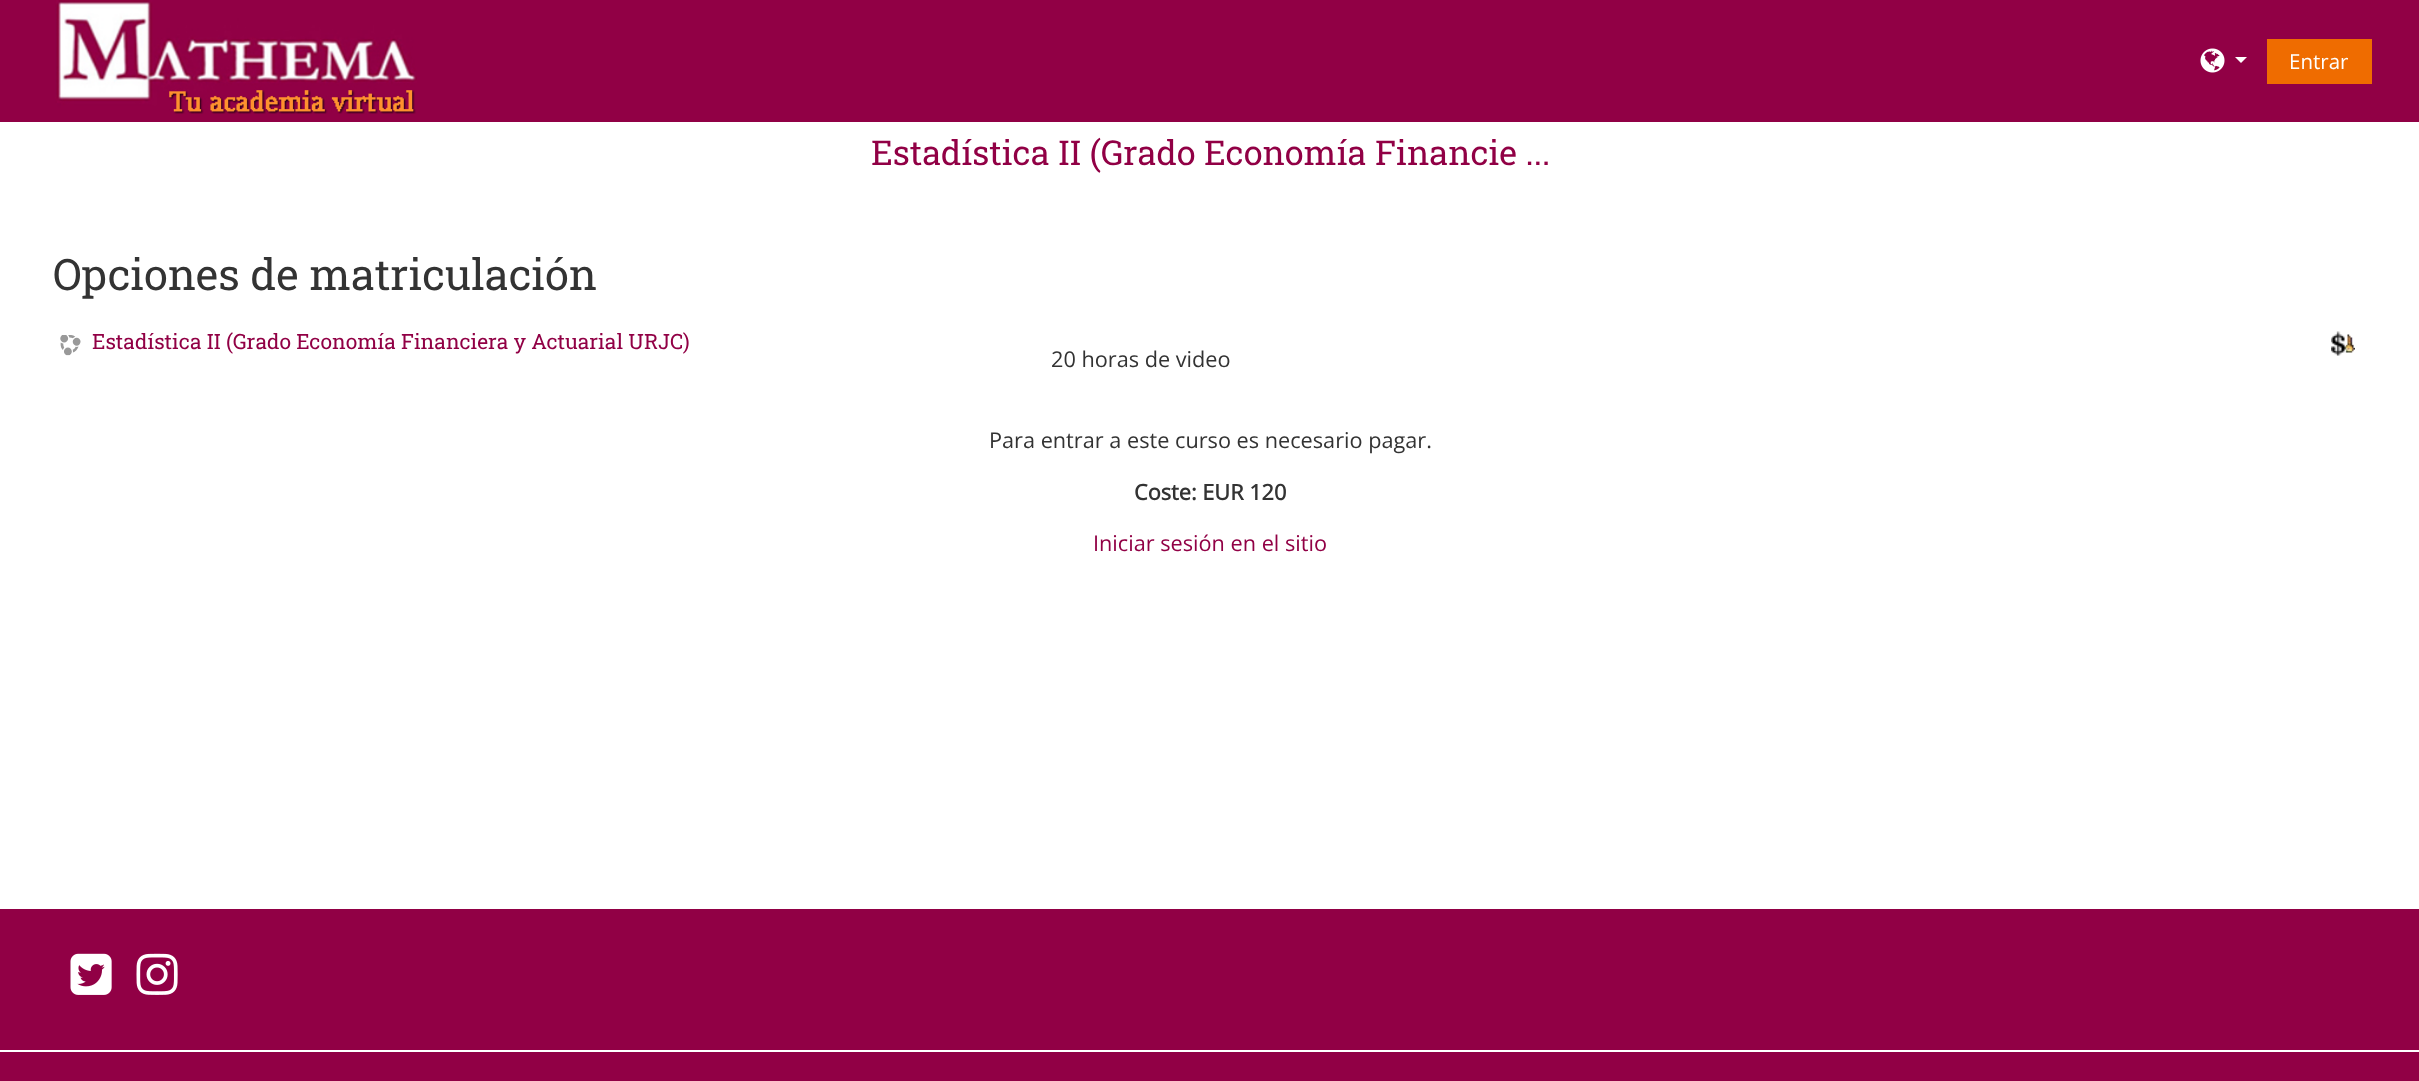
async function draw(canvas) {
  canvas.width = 2419;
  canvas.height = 1081;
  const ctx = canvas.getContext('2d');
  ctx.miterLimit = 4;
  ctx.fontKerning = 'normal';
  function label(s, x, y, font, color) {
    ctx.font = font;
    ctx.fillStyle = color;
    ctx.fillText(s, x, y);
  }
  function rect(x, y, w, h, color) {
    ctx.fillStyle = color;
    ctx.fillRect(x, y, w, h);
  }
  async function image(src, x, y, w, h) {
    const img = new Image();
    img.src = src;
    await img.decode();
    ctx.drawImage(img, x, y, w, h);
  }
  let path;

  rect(0, 0, 2419, 1081, '#fff');
  rect(0, 0, 2419, 122, '#910045');
  await image('assets/img1.png', 55, 0, 362, 114);
  await image('assets/img2.png', 2200, 48, 25, 25);
  ctx.fillStyle = '#fff';
  path = new Path2D('M2235 57H2247L2241 63Z');
  ctx.fill(path);
  rect(2267, 39, 105, 45, '#ef6c00');
  label('Entrar', 2289, 69, '20.5px Open Sans', '#fff');
  label('Estadística II (Grado Economía Financie ...', 871, 165, '34.25px Roboto Slab', '#910045');
  label('Opciones de matriculación', 53, 290, '43.25px Roboto Slab', '#333');
  await image('assets/img3.png', 60, 335, 21, 21);
  label('Estadística II (Grado Economía Financiera y Actuarial URJC)', 92, 349, '21px Roboto Slab', '#910045');
  await image('assets/img4.png', 2331, 331, 24, 25);
  label('20 horas de video', 1051, 367, '21.7px Open Sans', '#333');
  label('Para entrar a este curso es necesario pagar.', 989, 448, '21.7px Open Sans', '#333');
  label('Coste: EUR 120', 1134, 500, 'bold 21.7px Open Sans', '#333');
  label('Iniciar sesión en el sitio', 1093, 551, '21.7px Open Sans', '#910045');
  rect(0, 909, 2419, 172, '#910045');
  await image('assets/img5.png', 70, 953, 42, 42);
  await image('assets/img6.png', 136, 953, 42, 42);
  rect(0, 1050, 2419, 2, '#fff');
}

draw(document.querySelector('canvas'));
